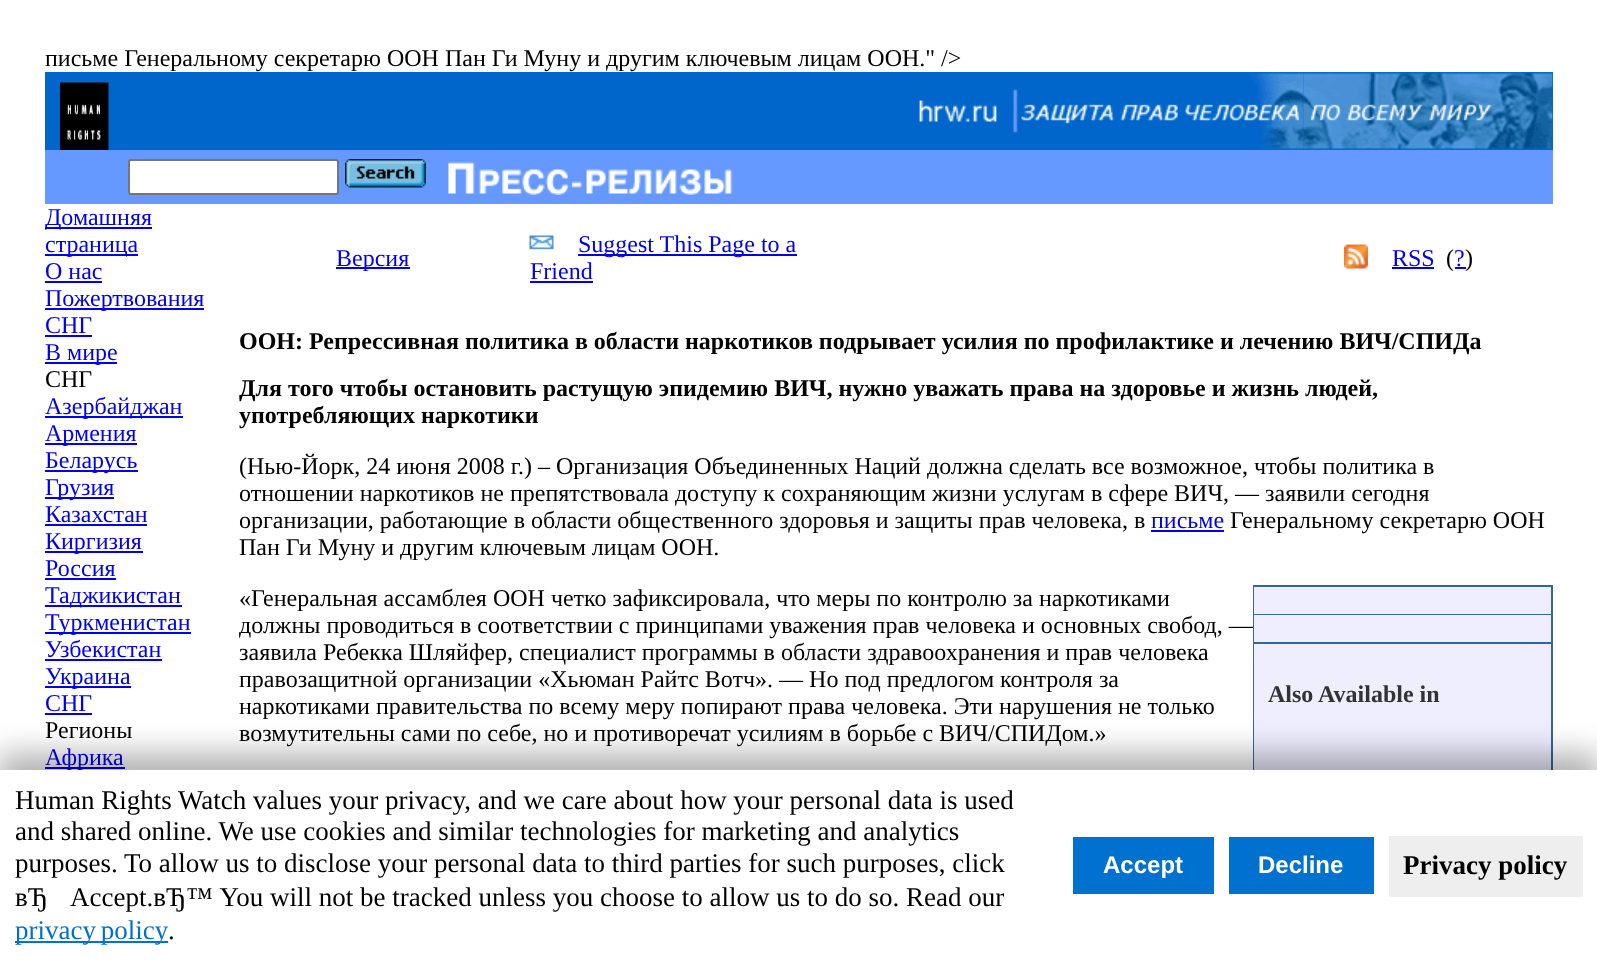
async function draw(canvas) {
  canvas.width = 1597;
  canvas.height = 961;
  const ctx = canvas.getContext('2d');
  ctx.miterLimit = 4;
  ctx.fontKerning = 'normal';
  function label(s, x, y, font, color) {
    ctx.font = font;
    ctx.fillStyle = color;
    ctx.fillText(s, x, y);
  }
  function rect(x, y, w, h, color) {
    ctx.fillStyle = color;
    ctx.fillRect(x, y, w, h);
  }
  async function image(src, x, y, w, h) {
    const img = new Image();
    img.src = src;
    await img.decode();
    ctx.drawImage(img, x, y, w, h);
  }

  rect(0, 0, 1597, 961, '#fff');
  label('письме Генеральному секретарю ООН Пан Ги Муну и другим ключевым лицам ООН." />', 45, 66, '24px Liberation Serif', '#000');
  rect(45, 72, 1508, 78, '#06c');
  await image('assets/img1.png', 59, 82, 50, 68);
  await image('assets/img2.png', 919, 72, 385, 78);
  await image('assets/img3.png', 1303, 72, 250, 78);
  rect(45, 150, 1508, 54, '#69f');
  ctx.fillStyle = '#fff';
  ctx.beginPath();
  ctx.roundRect(129, 160, 209, 34, 2);
  ctx.fill();
  ctx.strokeStyle = '#767676';
  ctx.lineWidth = 2;
  ctx.stroke();
  await image('assets/img4.png', 345, 159, 81, 29);
  await image('assets/img5.png', 448, 161, 285, 34);
  rect(45, 227, 107, 2, '#00e');
  label('Домашняя', 45, 225, '24px Liberation Serif', '#00e');
  rect(45, 254, 93, 2, '#00e');
  label('страница', 45, 252, '24px Liberation Serif', '#00e');
  label('О нас', 45, 279, '24px Liberation Serif', '#00e');
  rect(45, 281, 57, 2, '#00e');
  rect(45, 308, 159, 2, '#00e');
  label('Пожертвования', 45, 306, '24px Liberation Serif', '#00e');
  label('СНГ', 45, 333, '24px Liberation Serif', '#00e');
  rect(45, 335, 47, 2, '#00e');
  rect(45, 362, 72, 2, '#00e');
  label('В мире', 45, 360, '24px Liberation Serif', '#00e');
  label('СНГ', 45, 387, '24px Liberation Serif', '#000');
  rect(45, 416, 138, 2, '#00e');
  label('Азербайджан', 45, 414, '24px Liberation Serif', '#00e');
  rect(45, 443, 92, 2, '#00e');
  label('Армения', 45, 441, '24px Liberation Serif', '#00e');
  rect(45, 470, 93, 2, '#00e');
  label('Беларусь', 45, 468, '24px Liberation Serif', '#00e');
  rect(45, 497, 69, 2, '#00e');
  label('Грузия', 45, 495, '24px Liberation Serif', '#00e');
  label('Казахстан', 45, 522, '24px Liberation Serif', '#00e');
  rect(45, 524, 102, 2, '#00e');
  rect(45, 551, 98, 2, '#00e');
  label('Киргизия', 45, 549, '24px Liberation Serif', '#00e');
  label('Россия', 45, 576, '24px Liberation Serif', '#00e');
  rect(45, 578, 71, 2, '#00e');
  rect(45, 605, 137, 2, '#00e');
  label('Таджикистан', 45, 603, '24px Liberation Serif', '#00e');
  rect(45, 632, 146, 2, '#00e');
  label('Туркменистан', 45, 630, '24px Liberation Serif', '#00e');
  label('Узбекистан', 45, 657, '24px Liberation Serif', '#00e');
  rect(45, 659, 117, 2, '#00e');
  rect(45, 686, 86, 2, '#00e');
  label('Украина', 45, 684, '24px Liberation Serif', '#00e');
  label('СНГ', 45, 711, '24px Liberation Serif', '#00e');
  rect(45, 713, 47, 2, '#00e');
  label('Регионы', 45, 738, '24px Liberation Serif', '#000');
  rect(45, 767, 80, 2, '#00e');
  label('Африка', 45, 765, '24px Liberation Serif', '#00e');
  rect(336, 267, 74, 2, '#00e');
  label('Версия', 336, 266, '24px Liberation Serif', '#00e');
  await image('assets/img6.png', 529, 235, 25, 15);
  rect(578, 254, 219, 2, '#00e');
  label('Suggest This Page to a', 578, 252, '24px Liberation Serif', '#00e');
  label('Friend', 530, 279, '24px Liberation Serif', '#00e');
  rect(530, 281, 63, 2, '#00e');
  await image('assets/img7.png', 1344, 244, 24, 25);
  label('RSS', 1392, 266, '24px Liberation Serif', '#00e');
  rect(1392, 267, 42, 2, '#00e');
  label('(', 1446, 266, '24px Liberation Serif', '#000');
  label('?', 1454, 266, '24px Liberation Serif', '#00e');
  rect(1455, 267, 11, 2, '#00e');
  label(')', 1465, 266, '24px Liberation Serif', '#000');
  label('ОOH: Репрессивная политика в области наркотиков подрывает усилия по профилактике и лечению ВИЧ/СПИДа', 239, 349, 'bold 24px Liberation Serif', '#000');
  ctx.save();
  ctx.beginPath();
  ctx.rect(239, 204, 1314, 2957);
  ctx.clip();
  label('Для того чтобы остановить растущую эпидемию ВИЧ, нужно уважать права на здоровье и жизнь людей,', 239, 396, 'bold 24px Liberation Serif', '#000');
  ctx.restore();
  label('употребляющих наркотики', 239, 423, 'bold 24px Liberation Serif', '#000');
  label('(Нью-Йорк, 24 июня 2008 г.) – Организация Объединенных Наций должна сделать все возможное, чтобы политика в', 239, 474, '24px Liberation Serif', '#000');
  label('отношении наркотиков не препятствовала доступу к сохраняющим жизни услугам в сфере ВИЧ, — заявили сегодня', 239, 501, '24px Liberation Serif', '#000');
  label('организации, работающие в области общественного здоровья и защиты прав человека, в', 239, 528, '24px Liberation Serif', '#000');
  label('письме', 1151, 528, '24px Liberation Serif', '#00e');
  rect(1151, 530, 73, 2, '#00e');
  label('Генеральному секретарю ООН', 1230, 528, '24px Liberation Serif', '#000');
  label('Пан Ги Муну и другим ключевым лицам ООН.', 239, 555, '24px Liberation Serif', '#000');
  label('«Генеральная ассамблея ООН четко зафиксировала, что меры по контролю за наркотиками', 239, 606, '24px Liberation Serif', '#000');
  ctx.save();
  ctx.beginPath();
  ctx.rect(239, 204, 1314, 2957);
  ctx.clip();
  label('должны проводиться в соответствии с принципами уважения прав человека и основных свобод, —', 239, 633, '24px Liberation Serif', '#000');
  ctx.restore();
  label('заявила Ребекка Шляйфер, специалист программы в области здравоохранения и прав человека', 239, 660, '24px Liberation Serif', '#000');
  label('правозащитной организации «Хьюман Райтс Вотч». — Но под предлогом контроля за', 239, 687, '24px Liberation Serif', '#000');
  rect(1253, 585, 300, 185, '#369');
  rect(1254, 587, 297, 27, '#eef');
  rect(1254, 615, 297, 27, '#eef');
  rect(1254, 644, 297, 126, '#eef');
  label('Also Available in', 1268, 702, 'bold 24px Liberation Serif', '#333');
  label('наркотиками правительства по всему меру попирают права человека. Эти нарушения не только', 239, 714, '24px Liberation Serif', '#000');
  label('возмутительны сами по себе, но и противоречат усилиям в борьбе с ВИЧ/СПИДом.»', 239, 741, '24px Liberation Serif', '#000');
  ctx.fillStyle = '#0000004d';
  ctx.filter = 'blur(15px)';
  ctx.beginPath();
  ctx.rect(-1, 753, 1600, 195);
  ctx.fill();
  ctx.filter = 'none';
  rect(0, 770, 1597, 191, '#fff');
  label('Human Rights Watch values your privacy, and we care about how your personal data is used', 15, 809, '27px Liberation Serif', '#000');
  label('and shared online. We use cookies and similar technologies for marketing and analytics', 15, 840, '27px Liberation Serif', '#000');
  label('purposes. To allow us to disclose your personal data to third parties for such purposes, click', 15, 872, '27px Liberation Serif', '#000');
  label('вЂ', 15, 906, '27px Liberation Serif', '#000');
  label('Accept.вЂ™ You will not be tracked unless you choose to allow us to do so. Read our', 70, 906, '27px Liberation Serif', '#000');
  rect(15, 941, 153, 2, '#0071ce');
  ctx.wordSpacing = '-2px';
  label('privacy policy', 15, 939, '27px Liberation Serif', '#0071ce');
  ctx.wordSpacing = '0px';
  label('.', 168, 939, '27px Liberation Serif', '#000');
  rect(1073, 837, 141, 57, '#0071ce');
  label('Accept', 1103, 873, 'bold 24px Liberation Sans', '#fff');
  rect(1229, 837, 145, 57, '#0071ce');
  label('Decline', 1258, 873, 'bold 24px Liberation Sans', '#fff');
  rect(1389, 836, 194, 61, '#eee');
  label('Privacy policy', 1403, 874, 'bold 27px Liberation Serif', '#000');
}

draw(document.querySelector('canvas'));
